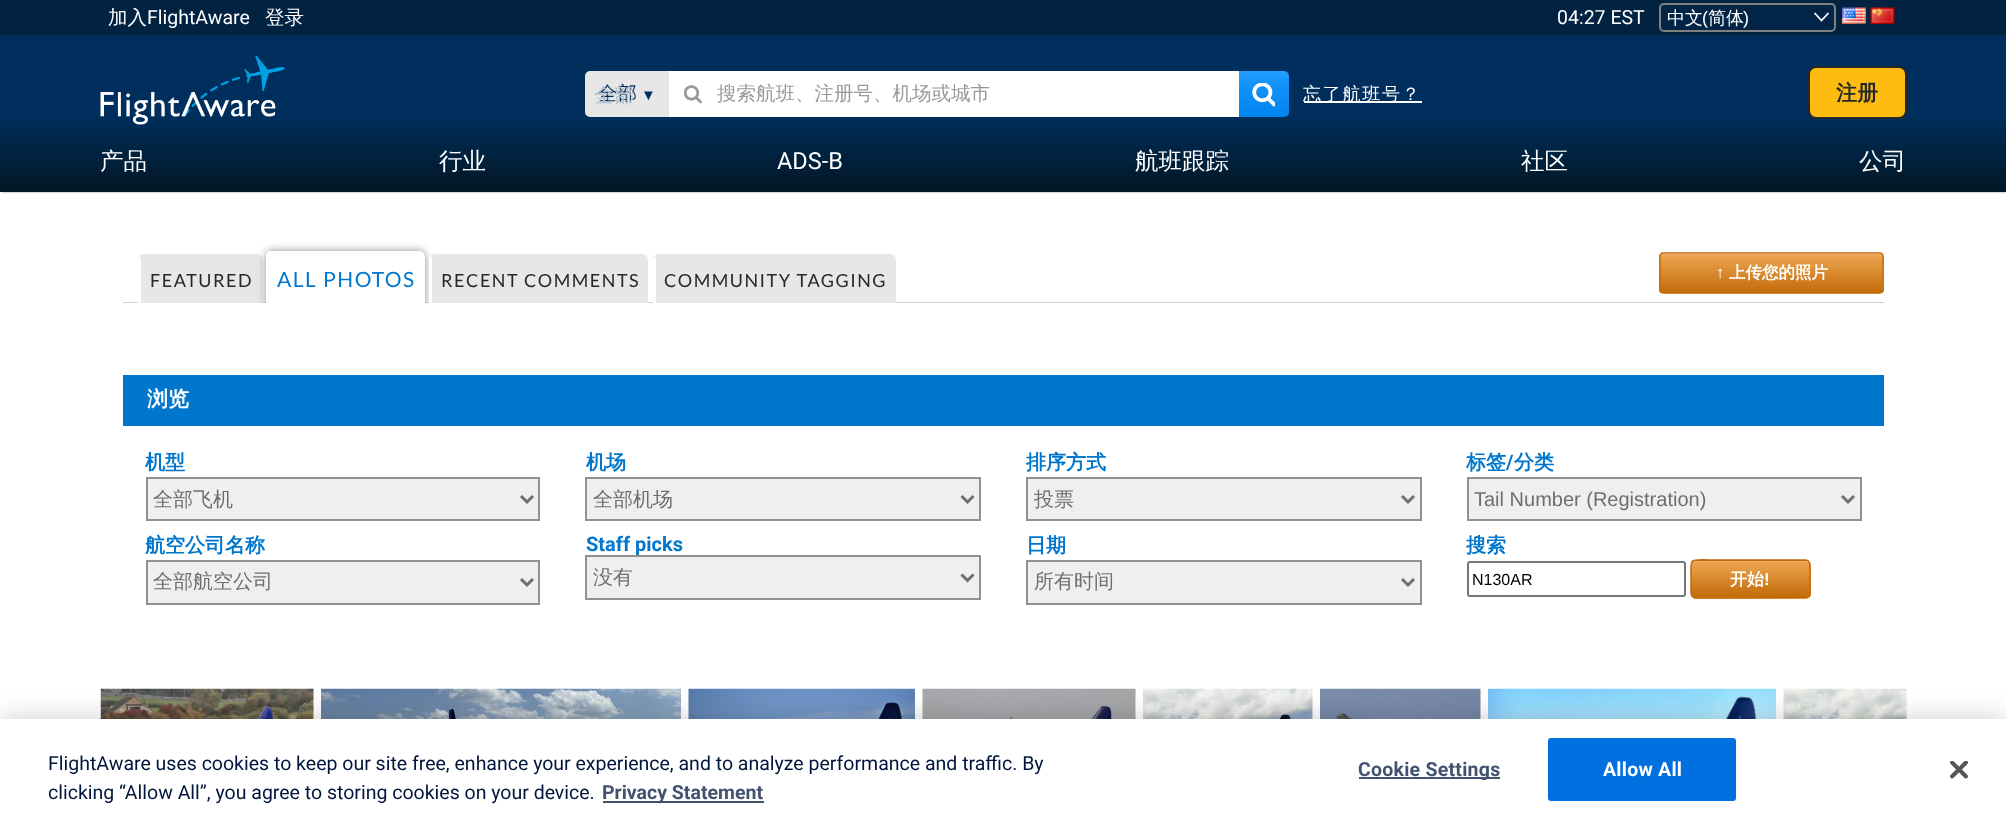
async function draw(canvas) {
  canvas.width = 2006;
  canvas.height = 824;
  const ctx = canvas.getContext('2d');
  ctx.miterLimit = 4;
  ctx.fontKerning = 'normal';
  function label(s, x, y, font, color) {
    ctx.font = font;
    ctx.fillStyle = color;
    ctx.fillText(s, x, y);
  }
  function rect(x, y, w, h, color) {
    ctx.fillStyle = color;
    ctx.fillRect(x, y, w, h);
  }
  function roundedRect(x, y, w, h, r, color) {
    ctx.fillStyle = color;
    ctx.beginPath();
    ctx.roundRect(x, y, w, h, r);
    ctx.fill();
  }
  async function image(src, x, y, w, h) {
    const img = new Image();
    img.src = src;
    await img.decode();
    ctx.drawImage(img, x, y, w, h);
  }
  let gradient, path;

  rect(0, 0, 2006, 824, '#fff');
  ctx.fillStyle = '#888';
  ctx.filter = 'blur(1px)';
  ctx.beginPath();
  ctx.rect(2, 3, 2004, 189);
  ctx.fill();
  ctx.filter = 'none';
  gradient = ctx.createLinearGradient(1004, 0, 1004, 192);
  gradient.addColorStop(0, '#002f5d');
  gradient.addColorStop(0.6, '#002f5d');
  gradient.addColorStop(1, '#021624');
  ctx.fillStyle = gradient;
  ctx.fillRect(0, 35, 2006, 157);
  rect(0, 0, 2006, 35, '#022241');
  label('加入', 108, 24, '500 19.5px WenQuanYi Zen Hei', '#fff');
  label('FlightAware', 147, 24, '19.5px Roboto', '#fff');
  label('登录', 265, 24, '500 19.5px WenQuanYi Zen Hei', '#fff');
  label('04:27 EST', 1557, 24, '19.5px Roboto', '#fff');
  roundedRect(1659, 3, 177, 29, 5, '#022547');
  path = new Path2D('M1814.5 13L1821.5 20.5L1828.5 13');
  ctx.strokeStyle = '#fff';
  ctx.lineWidth = 1.8;
  ctx.stroke(path);
  ctx.beginPath();
  ctx.roundRect(1660, 4, 175, 27, 4);
  ctx.strokeStyle = '#808080';
  ctx.lineWidth = 2;
  ctx.stroke();
  label('中文', 1667, 24, '500 18px WenQuanYi Zen Hei', '#fff');
  label('(', 1702, 24, '18px Liberation Sans', '#fff');
  label('简体', 1708, 24, '500 18px WenQuanYi Zen Hei', '#fff');
  label(')', 1743, 24, '18px Liberation Sans', '#fff');
  await image('assets/img1.png', 1842, 7, 24, 17);
  await image('assets/img2.png', 1870, 7, 25, 17);
  await image('assets/img3.png', 100, 55, 185, 70);
  ctx.fillStyle = '#e7e7e7';
  ctx.beginPath();
  ctx.roundRect(586, 72, 82, 44, [4, 0, 0, 4]);
  ctx.fill();
  ctx.strokeStyle = '#e7e7e7';
  ctx.stroke();
  label('全部', 598, 100, '500 19.5px WenQuanYi Zen Hei', '#002f5d');
  label('▼', 641, 100, '15px Liberation Sans', '#002f5d');
  label('全部', 594, 102, '500 20px WenQuanYi Zen Hei', '#b4bec8');
  rect(669, 71, 570, 46, '#fff');
  await image('assets/img4.png', 684, 85, 18, 19);
  label('搜索航班、注册号、机场或城市', 717, 100, '500 19.5px WenQuanYi Zen Hei', '#999');
  gradient = ctx.createLinearGradient(1264, 117, 1264, 71);
  gradient.addColorStop(0, '#0084f0');
  gradient.addColorStop(0.66, '#1291f8');
  gradient.addColorStop(1, '#249dff');
  ctx.fillStyle = gradient;
  ctx.beginPath();
  ctx.roundRect(1239, 71, 50, 46, [0, 5, 5, 0]);
  ctx.fill();
  await image('assets/img5.png', 1252, 83, 23, 24);
  rect(1304, 101, 118, 2, '#fff');
  ctx.letterSpacing = '1.75px';
  label('忘了航班号？', 1303, 100, '500 18px WenQuanYi Zen Hei', '#fff');
  ctx.fillStyle = '#febc11';
  ctx.beginPath();
  ctx.roundRect(1809, 67, 97, 51, 7);
  ctx.fill();
  ctx.strokeStyle = '#272727';
  ctx.stroke();
  ctx.letterSpacing = '0px';
  label('注册', 1836, 100, 'bold 21px WenQuanYi Zen Hei', '#272727');
  label('产品', 100, 169, '500 23.5px WenQuanYi Zen Hei', '#fff');
  label('行业', 439, 169, '500 23.5px WenQuanYi Zen Hei', '#fff');
  label('ADS-B', 777, 169, '23.5px Roboto', '#fff');
  label('航班跟踪', 1135, 169, '500 23.5px WenQuanYi Zen Hei', '#fff');
  label('社区', 1521, 169, '500 23.5px WenQuanYi Zen Hei', '#fff');
  label('公司', 1859, 169, '500 23.5px WenQuanYi Zen Hei', '#fff');
  rect(123, 302, 1761, 1, '#d1d1d1');
  ctx.save();
  ctx.beginPath();
  ctx.rect(123, 228, 1761, 75);
  ctx.clip();
  roundedRect(138, 254, 125, 52, 6, '#e7e7e7');
  ctx.restore();
  ctx.letterSpacing = '1.5px';
  label('FEATURED', 150, 287, '18px Lato', '#272727');
  rect(138, 257, 3, 46, '#fff');
  ctx.save();
  ctx.beginPath();
  ctx.rect(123, 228, 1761, 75);
  ctx.clip();
  ctx.fillStyle = '#888';
  ctx.filter = 'blur(4px)';
  ctx.beginPath();
  ctx.roundRect(266, 251, 159, 58, 6);
  ctx.fill();
  ctx.filter = 'none';
  ctx.restore();
  ctx.beginPath();
  ctx.roundRect(266, 251, 159, 52, [6, 6, 0, 0]);
  ctx.fill();
  label('ALL PHOTOS', 277, 287, '21px Lato', '#07c');
  ctx.save();
  ctx.beginPath();
  ctx.rect(123, 228, 1761, 75);
  ctx.clip();
  ctx.fillStyle = '#fff';
  path = new Path2D('M272 250H418C422 250 424 253 424 256V303C424 306 422 309 418 309H272C268 309 266 306 266 303V256C266 253 268 250 272 250ZM272 250H418C422 250 424 253 424 256V303C424 305 422 306 418 306H272C270 306 268 305 268 303V256C268 253 270 250 272 250Z');
  ctx.fill(path, 'evenodd');
  roundedRect(429, 254, 219, 52, 6, '#e7e7e7');
  ctx.restore();
  label('RECENT COMMENTS', 441, 287, '18px Lato', '#272727');
  rect(429, 257, 3, 46, '#fff');
  ctx.save();
  ctx.beginPath();
  ctx.rect(123, 228, 1761, 75);
  ctx.clip();
  roundedRect(653, 254, 243, 52, 6, '#e7e7e7');
  ctx.restore();
  label('COMMUNITY TAGGING', 664, 287, '18px Lato', '#272727');
  rect(653, 257, 3, 46, '#fff');
  ctx.save();
  ctx.beginPath();
  ctx.roundRect(1659, 252, 225, 42, 5);
  ctx.clip();
  gradient = ctx.createLinearGradient(1661, 254, 1661, 293);
  gradient.addColorStop(0, '#eda653');
  gradient.addColorStop(1, '#c36b09');
  ctx.fillStyle = gradient;
  ctx.fillRect(1659, 254, 225, 39);
  ctx.restore();
  ctx.fillStyle = '#edae63';
  path = new Path2D('M1664 255H1880C1884 255 1882 268 1882 269V292C1883 292 1883 291 1883 290V257C1883 255 1882 254 1880 254H1664C1663 254 1662 255 1661 256Z');
  ctx.fill(path);
  path = new Path2D('M1882 292C1881.5 293 1880.5 293 1879.5 293H1663.5C1662.5 293 1661.5 293 1661 292');
  ctx.strokeStyle = '#c26905';
  ctx.lineWidth = 1.5;
  ctx.stroke(path);
  path = new Path2D('M1661 292C1660 291.5 1660 290.5 1660 289.5V256.5C1660 255.5 1660 254.5 1661 254C1661.5 253 1662.5 253 1663.5 253H1879.5C1880.5 253 1881.5 253 1882 254C1883 254.5 1883 255.5 1883 256.5V289.5C1883 290.5 1883 291.5 1882 292');
  ctx.strokeStyle = '#c36b09';
  ctx.stroke(path);
  ctx.letterSpacing = '0px';
  label('↑', 1716, 278, 'bold 16.5px Liberation Sans', '#fff');
  label('上传您的照片', 1729, 278, 'bold 16.5px WenQuanYi Zen Hei', '#fff');
  rect(123, 375, 1761, 51, '#07c');
  label('浏览', 147, 406, 'bold 21px WenQuanYi Zen Hei', '#fff');
  label('机型', 145, 469, 'bold 20px WenQuanYi Zen Hei', '#07c');
  ctx.fillStyle = '#efefef';
  ctx.beginPath();
  ctx.rect(147, 478, 392, 42);
  ctx.fill();
  ctx.strokeStyle = '#919194';
  ctx.lineWidth = 2;
  ctx.stroke();
  path = new Path2D('M521 496L527 502L533 496');
  ctx.strokeStyle = '#6d6e71';
  ctx.lineWidth = 3;
  ctx.stroke(path);
  label('全部飞机', 153, 506, '500 20px WenQuanYi Zen Hei', '#6d6e71');
  label('机场', 586, 469, 'bold 20px WenQuanYi Zen Hei', '#07c');
  ctx.fillStyle = '#efefef';
  ctx.beginPath();
  ctx.rect(586, 478, 394, 42);
  ctx.fill();
  ctx.strokeStyle = '#919194';
  ctx.lineWidth = 2;
  ctx.stroke();
  path = new Path2D('M961.5 496L967.5 502L973.5 496');
  ctx.strokeStyle = '#6d6e71';
  ctx.lineWidth = 3;
  ctx.stroke(path);
  label('全部机场', 593, 506, '500 20px WenQuanYi Zen Hei', '#6d6e71');
  label('排序方式', 1026, 469, 'bold 20px WenQuanYi Zen Hei', '#07c');
  ctx.fillStyle = '#efefef';
  ctx.beginPath();
  ctx.rect(1027, 478, 394, 42);
  ctx.fill();
  ctx.strokeStyle = '#919194';
  ctx.lineWidth = 2;
  ctx.stroke();
  path = new Path2D('M1402 496L1408 502L1414 496');
  ctx.strokeStyle = '#6d6e71';
  ctx.lineWidth = 3;
  ctx.stroke(path);
  ctx.save();
  ctx.beginPath();
  ctx.rect(1034, 486, 363, 26);
  ctx.clip();
  label('投票', 1034, 506, '500 20px WenQuanYi Zen Hei', '#6d6e71');
  ctx.restore();
  label('标签', 1466, 469, 'bold 20px WenQuanYi Zen Hei', '#07c');
  label('/', 1506, 469, 'bold 20px Roboto', '#07c');
  label('分类', 1514, 469, 'bold 20px WenQuanYi Zen Hei', '#07c');
  ctx.fillStyle = '#efefef';
  ctx.beginPath();
  ctx.rect(1468, 478, 393, 42);
  ctx.fill();
  ctx.strokeStyle = '#919194';
  ctx.lineWidth = 2;
  ctx.stroke();
  path = new Path2D('M1842 496L1848 502L1854 496');
  ctx.strokeStyle = '#6d6e71';
  ctx.lineWidth = 3;
  ctx.stroke(path);
  label('Tail Number (Registration)', 1474, 506, '20px Liberation Sans', '#6d6e71');
  label('航空公司名称', 145, 552, 'bold 20px WenQuanYi Zen Hei', '#07c');
  ctx.fillStyle = '#efefef';
  ctx.beginPath();
  ctx.rect(147, 561, 392, 43);
  ctx.fill();
  ctx.strokeStyle = '#919194';
  ctx.lineWidth = 2;
  ctx.stroke();
  path = new Path2D('M521 579L527 585L533 579');
  ctx.strokeStyle = '#6d6e71';
  ctx.lineWidth = 3;
  ctx.stroke(path);
  label('全部航空公司', 153, 588, '500 20px WenQuanYi Zen Hei', '#6d6e71');
  label('Staff picks', 586, 551, 'bold 20px Roboto', '#07c');
  ctx.fillStyle = '#efefef';
  ctx.beginPath();
  ctx.rect(586, 556, 394, 43);
  ctx.fill();
  ctx.strokeStyle = '#919194';
  ctx.lineWidth = 2;
  ctx.stroke();
  path = new Path2D('M961.5 574.5L967.5 580.5L973.5 574.5');
  ctx.strokeStyle = '#6d6e71';
  ctx.lineWidth = 3;
  ctx.stroke(path);
  label('没有', 593, 584, '500 20px WenQuanYi Zen Hei', '#6d6e71');
  label('日期', 1026, 552, 'bold 20px WenQuanYi Zen Hei', '#07c');
  ctx.fillStyle = '#efefef';
  ctx.beginPath();
  ctx.rect(1027, 561, 394, 43);
  ctx.fill();
  ctx.strokeStyle = '#919194';
  ctx.lineWidth = 2;
  ctx.stroke();
  path = new Path2D('M1402 579L1408 585L1414 579');
  ctx.strokeStyle = '#6d6e71';
  ctx.lineWidth = 3;
  ctx.stroke(path);
  label('所有时间', 1034, 588, '500 20px WenQuanYi Zen Hei', '#6d6e71');
  label('搜索', 1466, 552, 'bold 20px WenQuanYi Zen Hei', '#07c');
  ctx.beginPath();
  ctx.roundRect(1468, 562, 217, 34, 2);
  ctx.strokeStyle = '#767676';
  ctx.lineWidth = 2;
  ctx.stroke();
  label('N130AR', 1472, 585, '16px Liberation Sans', '#000');
  ctx.save();
  ctx.beginPath();
  ctx.roundRect(1691, 560, 120, 39, 5);
  ctx.clip();
  gradient = ctx.createLinearGradient(1692, 525, 1692, 561);
  gradient.addColorStop(0, '#eda653');
  gradient.addColorStop(1, '#c36b09');
  ctx.fillStyle = gradient;
  ctx.fillRect(1691, 560, 120, 1);
  gradient = ctx.createLinearGradient(1692, 561, 1692, 597);
  gradient.addColorStop(0, '#eda653');
  gradient.addColorStop(1, '#c36b09');
  ctx.fillStyle = gradient;
  ctx.fillRect(1691, 561, 120, 36);
  gradient = ctx.createLinearGradient(1692, 597, 1692, 633);
  gradient.addColorStop(0, '#eda653');
  gradient.addColorStop(1, '#c36b09');
  ctx.fillStyle = gradient;
  ctx.fillRect(1691, 597, 120, 2);
  ctx.restore();
  ctx.fillStyle = '#edae63';
  path = new Path2D('M1695 562H1806C1808 562 1809 564 1809 566V564C1809 562 1808 561 1806 561H1695C1693 561 1692 562 1692 564V566C1692 564 1693 562 1695 562Z');
  ctx.fill(path);
  path = new Path2D('M1808.5 596.5L1806.5 597.5L1713.5 598H1695L1692.5 596.5');
  ctx.strokeStyle = '#c26905';
  ctx.lineWidth = 1.5;
  ctx.stroke(path);
  path = new Path2D('M1692.5 596.5C1690.5 595 1691 591 1691 589V579C1691 556 1688 560 1713.5 560H1806C1810.5 560.5 1810 566 1810 569V584C1810 586.5 1811 594 1808.5 596.5');
  ctx.strokeStyle = '#c36b09';
  ctx.stroke(path);
  label('开始', 1730, 585, 'bold 17px WenQuanYi Zen Hei', '#fff');
  label('!', 1764, 585, 'bold 17px Liberation Sans', '#fff');
  await image('assets/img6.png', 100, 688, 214, 31);
  await image('assets/img7.png', 321, 688, 360, 31);
  await image('assets/img8.png', 688, 688, 227, 31);
  await image('assets/img9.png', 922, 688, 214, 31);
  await image('assets/img10.png', 1143, 688, 170, 31);
  await image('assets/img11.png', 1320, 688, 161, 31);
  await image('assets/img12.png', 1488, 688, 288, 31);
  await image('assets/img13.png', 1783, 688, 124, 31);
  ctx.fillStyle = '#00000033';
  ctx.filter = 'blur(13.5px)';
  ctx.beginPath();
  ctx.rect(0, 719, 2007, 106);
  ctx.fill();
  ctx.filter = 'none';
  rect(0, 719, 2006, 105, '#fff');
  label('FlightAware uses cookies to keep our site free, enhance your experience, and to analyze performance and traffic. By', 48, 770, '19.5px Roboto', '#00153d');
  label('clicking “Allow All”, you agree to storing cookies on your device.', 48, 799, '19.5px Roboto', '#00153d');
  rect(603, 801, 161, 2, '#42526f');
  label('Privacy Statement', 602, 799, 'bold 19.5px Roboto', '#42526f');
  rect(1359, 777, 141, 2, '#42526f');
  ctx.letterSpacing = '0.25px';
  label('Cookie Settings', 1358, 776, 'bold 19.5px Roboto', '#42526f');
  ctx.fillStyle = '#0070e0';
  ctx.beginPath();
  ctx.roundRect(1549, 739, 186, 61, 2);
  ctx.fill();
  ctx.strokeStyle = '#0070e0';
  ctx.lineWidth = 2;
  ctx.stroke();
  label('Allow All', 1603, 776, 'bold 19.5px Roboto', '#fff');
  await image('assets/img14.png', 1950, 761, 18, 18);
}

draw(document.querySelector('canvas'));
